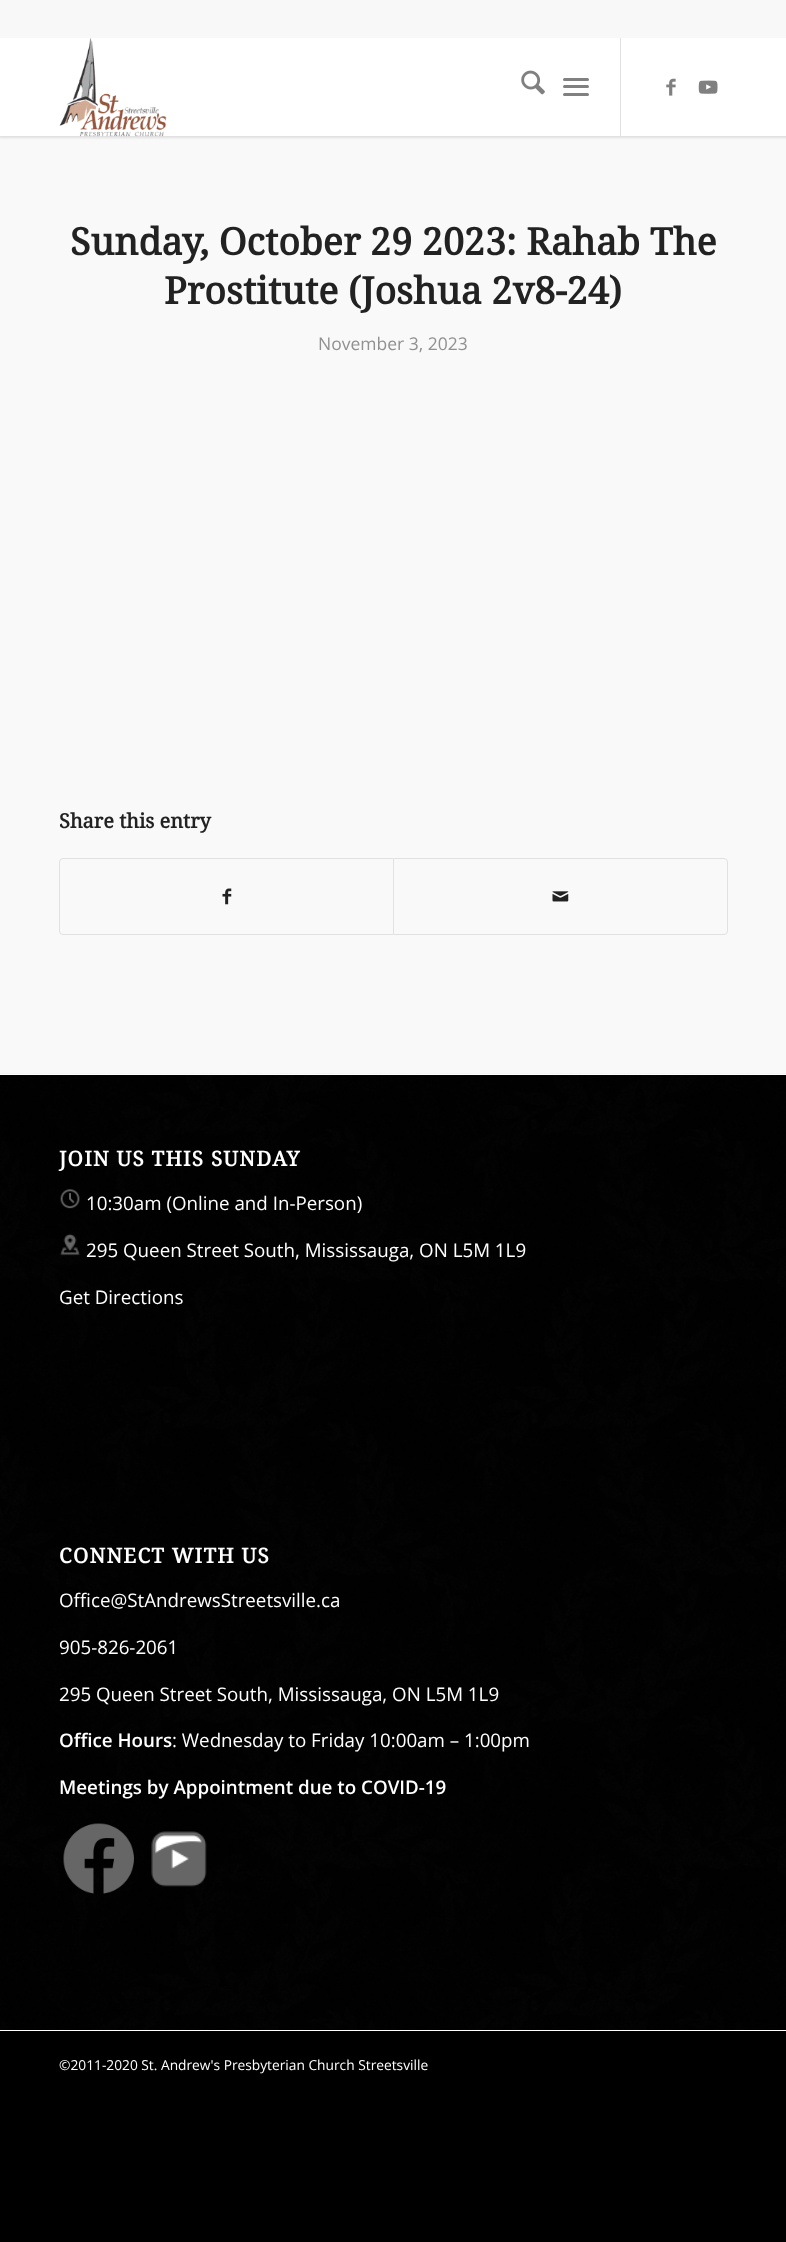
async function draw(canvas) {
  canvas.width = 786;
  canvas.height = 2242;
  const ctx = canvas.getContext('2d');
  ctx.miterLimit = 4;
  ctx.fontKerning = 'normal';
  function label(s, x, y, font, color) {
    ctx.font = font;
    ctx.fillStyle = color;
    ctx.fillText(s, x, y);
  }
  function rect(x, y, w, h, color) {
    ctx.fillStyle = color;
    ctx.fillRect(x, y, w, h);
  }
  function roundedRect(x, y, w, h, r, color) {
    ctx.fillStyle = color;
    ctx.beginPath();
    ctx.roundRect(x, y, w, h, r);
    ctx.fill();
  }
  async function image(src, x, y, w, h) {
    const img = new Image();
    img.src = src;
    await img.decode();
    ctx.drawImage(img, x, y, w, h);
  }

  rect(0, 0, 786, 2242, '#000');
  rect(0, 136, 786, 938, '#f9f9f9');
  ctx.fillStyle = '#0000001a';
  ctx.filter = 'blur(1px)';
  ctx.beginPath();
  ctx.rect(-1, -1, 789, 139);
  ctx.fill();
  ctx.filter = 'none';
  rect(0, 38, 786, 98, '#fff');
  rect(620, 36, 1, 100, '#e1e1e1');
  rect(0, 0, 786, 38, '#f8f8f8');
  await image('assets/img1.png', 59, 38, 108, 99);
  await image('assets/img2.png', 521, 70, 24, 25);
  roundedRect(563, 85, 26, 3, 1.5, '#808080');
  roundedRect(563, 78, 26, 3, 1.5, '#808080');
  roundedRect(563, 93, 26, 3, 1.5, '#808080');
  await image('assets/img3.png', 666, 78, 10, 18);
  await image('assets/img4.png', 698, 80, 20, 14);
  label('Sunday, October 29 2023: Rahab The', 70, 255, 'bold 37.5px Droid Serif', '#222');
  label('Prostitute (Joshua 2v8-24)', 164, 304, 'bold 37.5px Droid Serif', '#222');
  label('November 3, 2023', 318, 350, '17.5px Open Sans', '#919191');
  label('Share this entry', 59, 828, 'bold 20px Droid Serif', '#222');
  ctx.beginPath();
  ctx.roundRect(59.5, 858.5, 668, 76, 3.5);
  ctx.strokeStyle = '#e1e1e1';
  ctx.stroke();
  await image('assets/img5.png', 222, 888, 10, 17);
  rect(393, 859, 1, 75, '#e1e1e1');
  await image('assets/img6.png', 552, 891, 17, 11);
  await image('assets/img7.png', 0, 1073, 786, 957);
  rect(0, 1074, 786, 1, '#fff');
  ctx.letterSpacing = '1.25px';
  label('JOIN US THIS SUNDAY', 59, 1166, 'bold 20.6px Droid Serif', '#fff');
  await image('assets/img8.png', 60, 1189, 20, 20);
  ctx.letterSpacing = '0px';
  label('10:30am (Online and In-Person)', 86, 1210, '18.75px Open Sans', '#fff');
  await image('assets/img9.png', 60, 1233, 20, 23);
  label('295 Queen Street South, Mississauga, ON L5M 1L9', 86, 1257, '18.75px Open Sans', '#fff');
  label('Get Directions', 59, 1304, '18.75px Open Sans', '#fff');
  ctx.letterSpacing = '1.25px';
  label('CONNECT WITH US', 59, 1563, 'bold 20.6px Droid Serif', '#fff');
  ctx.letterSpacing = '0px';
  label('Office@StAndrewsStreetsville.ca', 59, 1607, '18.75px Open Sans', '#fff');
  label('905-826-2061', 59, 1654, '18.75px Open Sans', '#fff');
  label('295 Queen Street South, Mississauga, ON L5M 1L9', 59, 1701, '18.75px Open Sans', '#fff');
  label('Office Hours', 59, 1747, '600 18.75px Open Sans', '#fff');
  label(': Wednesday to Friday 10:00am – 1:00pm', 172, 1747, '18.75px Open Sans', '#fff');
  label('Meetings by Appointment due to COVID-19', 59, 1794, '600 18.75px Open Sans', '#fff');
  await image('assets/img10.png', 63, 1823, 71, 71);
  await image('assets/img11.png', 151, 1831, 56, 56);
  rect(0, 2030, 786, 1, '#fff');
  label('©2011-2020 St. Andrew\'s Presbyterian Church Streetsville', 59, 2070, '13.75px Open Sans', '#fff');
}

draw(document.querySelector('canvas'));
